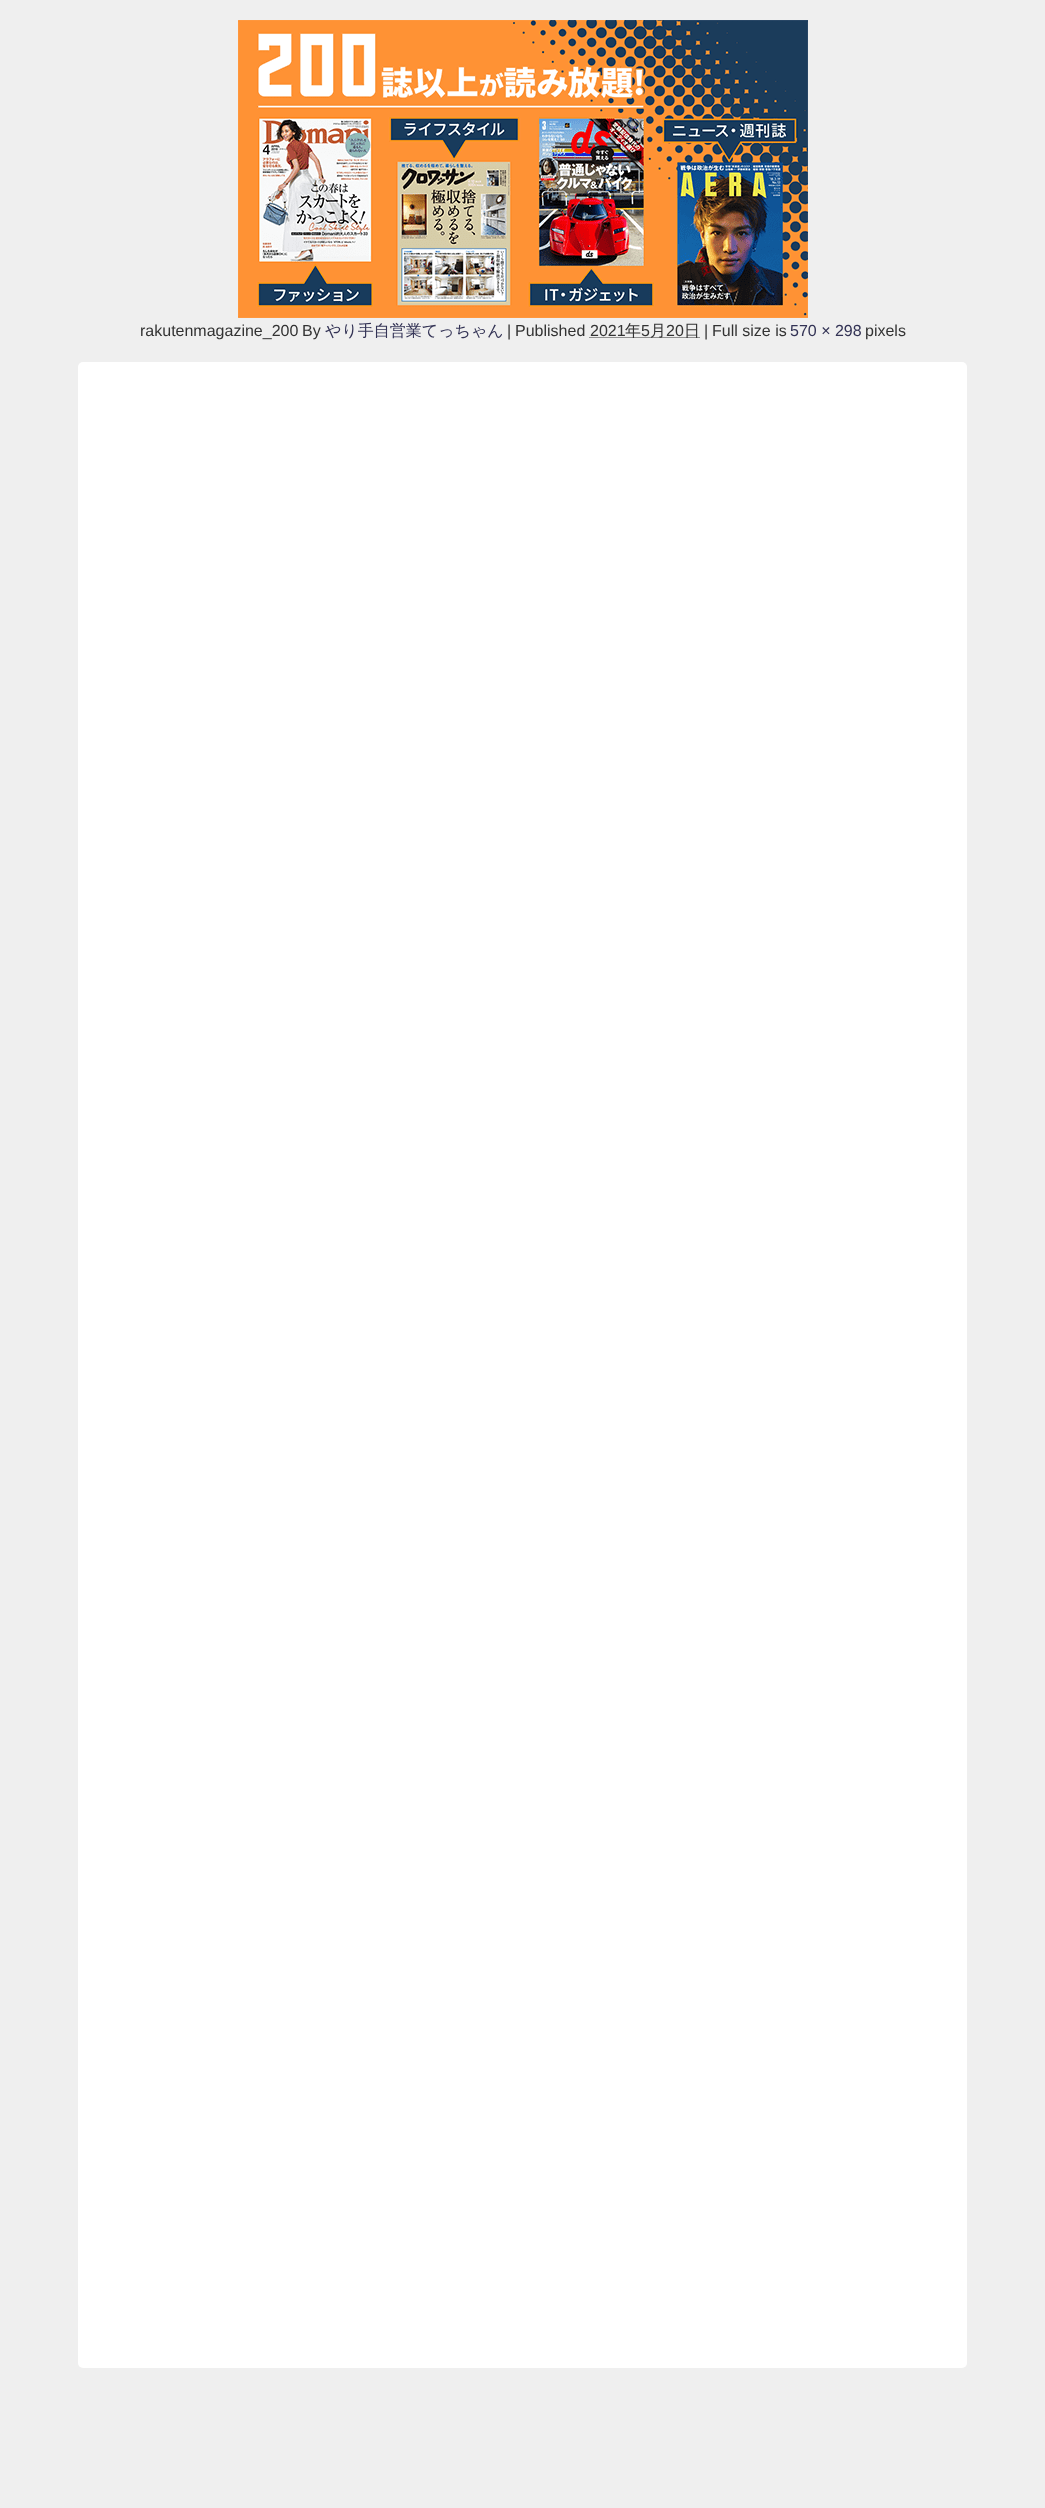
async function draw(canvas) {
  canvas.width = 1045;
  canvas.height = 2508;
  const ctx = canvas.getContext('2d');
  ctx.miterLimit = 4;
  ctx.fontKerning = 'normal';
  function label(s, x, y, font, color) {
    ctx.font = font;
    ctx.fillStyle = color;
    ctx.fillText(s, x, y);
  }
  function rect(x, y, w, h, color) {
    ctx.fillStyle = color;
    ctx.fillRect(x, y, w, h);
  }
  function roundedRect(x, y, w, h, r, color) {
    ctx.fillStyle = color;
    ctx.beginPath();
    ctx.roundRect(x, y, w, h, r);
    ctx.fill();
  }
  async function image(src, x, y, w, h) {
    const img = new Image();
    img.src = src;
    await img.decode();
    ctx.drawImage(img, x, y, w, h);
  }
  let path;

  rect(0, 0, 1045, 2508, '#efefef');
  await image('assets/img1.png', 238, 20, 570, 298);
  label('rakutenmagazine_200', 140, 336, '16px Liberation Sans', '#333');
  label('By', 302, 336, '16px Liberation Sans', '#333');
  label('やり手自営業てっちゃん', 325, 336, '500 16px WenQuanYi Zen Hei', '#335');
  label('|', 507, 336, '16px Liberation Sans', '#333');
  label('Published', 515, 336, '16px Liberation Sans', '#333');
  label('2021', 590, 336, '16px Liberation Sans', '#333');
  path = new Path2D('M589.5 337.5H700');
  ctx.strokeStyle = '#333';
  ctx.setLineDash([1, 1]);
  ctx.stroke(path);
  label('年', 625, 336, '500 16px WenQuanYi Zen Hei', '#333');
  label('5', 641, 336, '16px Liberation Sans', '#333');
  label('月', 650, 336, '500 16px WenQuanYi Zen Hei', '#333');
  label('20', 666, 336, '16px Liberation Sans', '#333');
  label('日', 684, 336, '500 16px WenQuanYi Zen Hei', '#333');
  label('|', 704, 336, '16px Liberation Sans', '#333');
  label('Full size is', 712, 336, '16px Liberation Sans', '#333');
  label('570 × 298', 790, 336, '16px Liberation Sans', '#335');
  label('pixels', 865, 336, '16px Liberation Sans', '#333');
  roundedRect(78, 362, 889, 2006, 5, '#fff');
}

draw(document.querySelector('canvas'));
